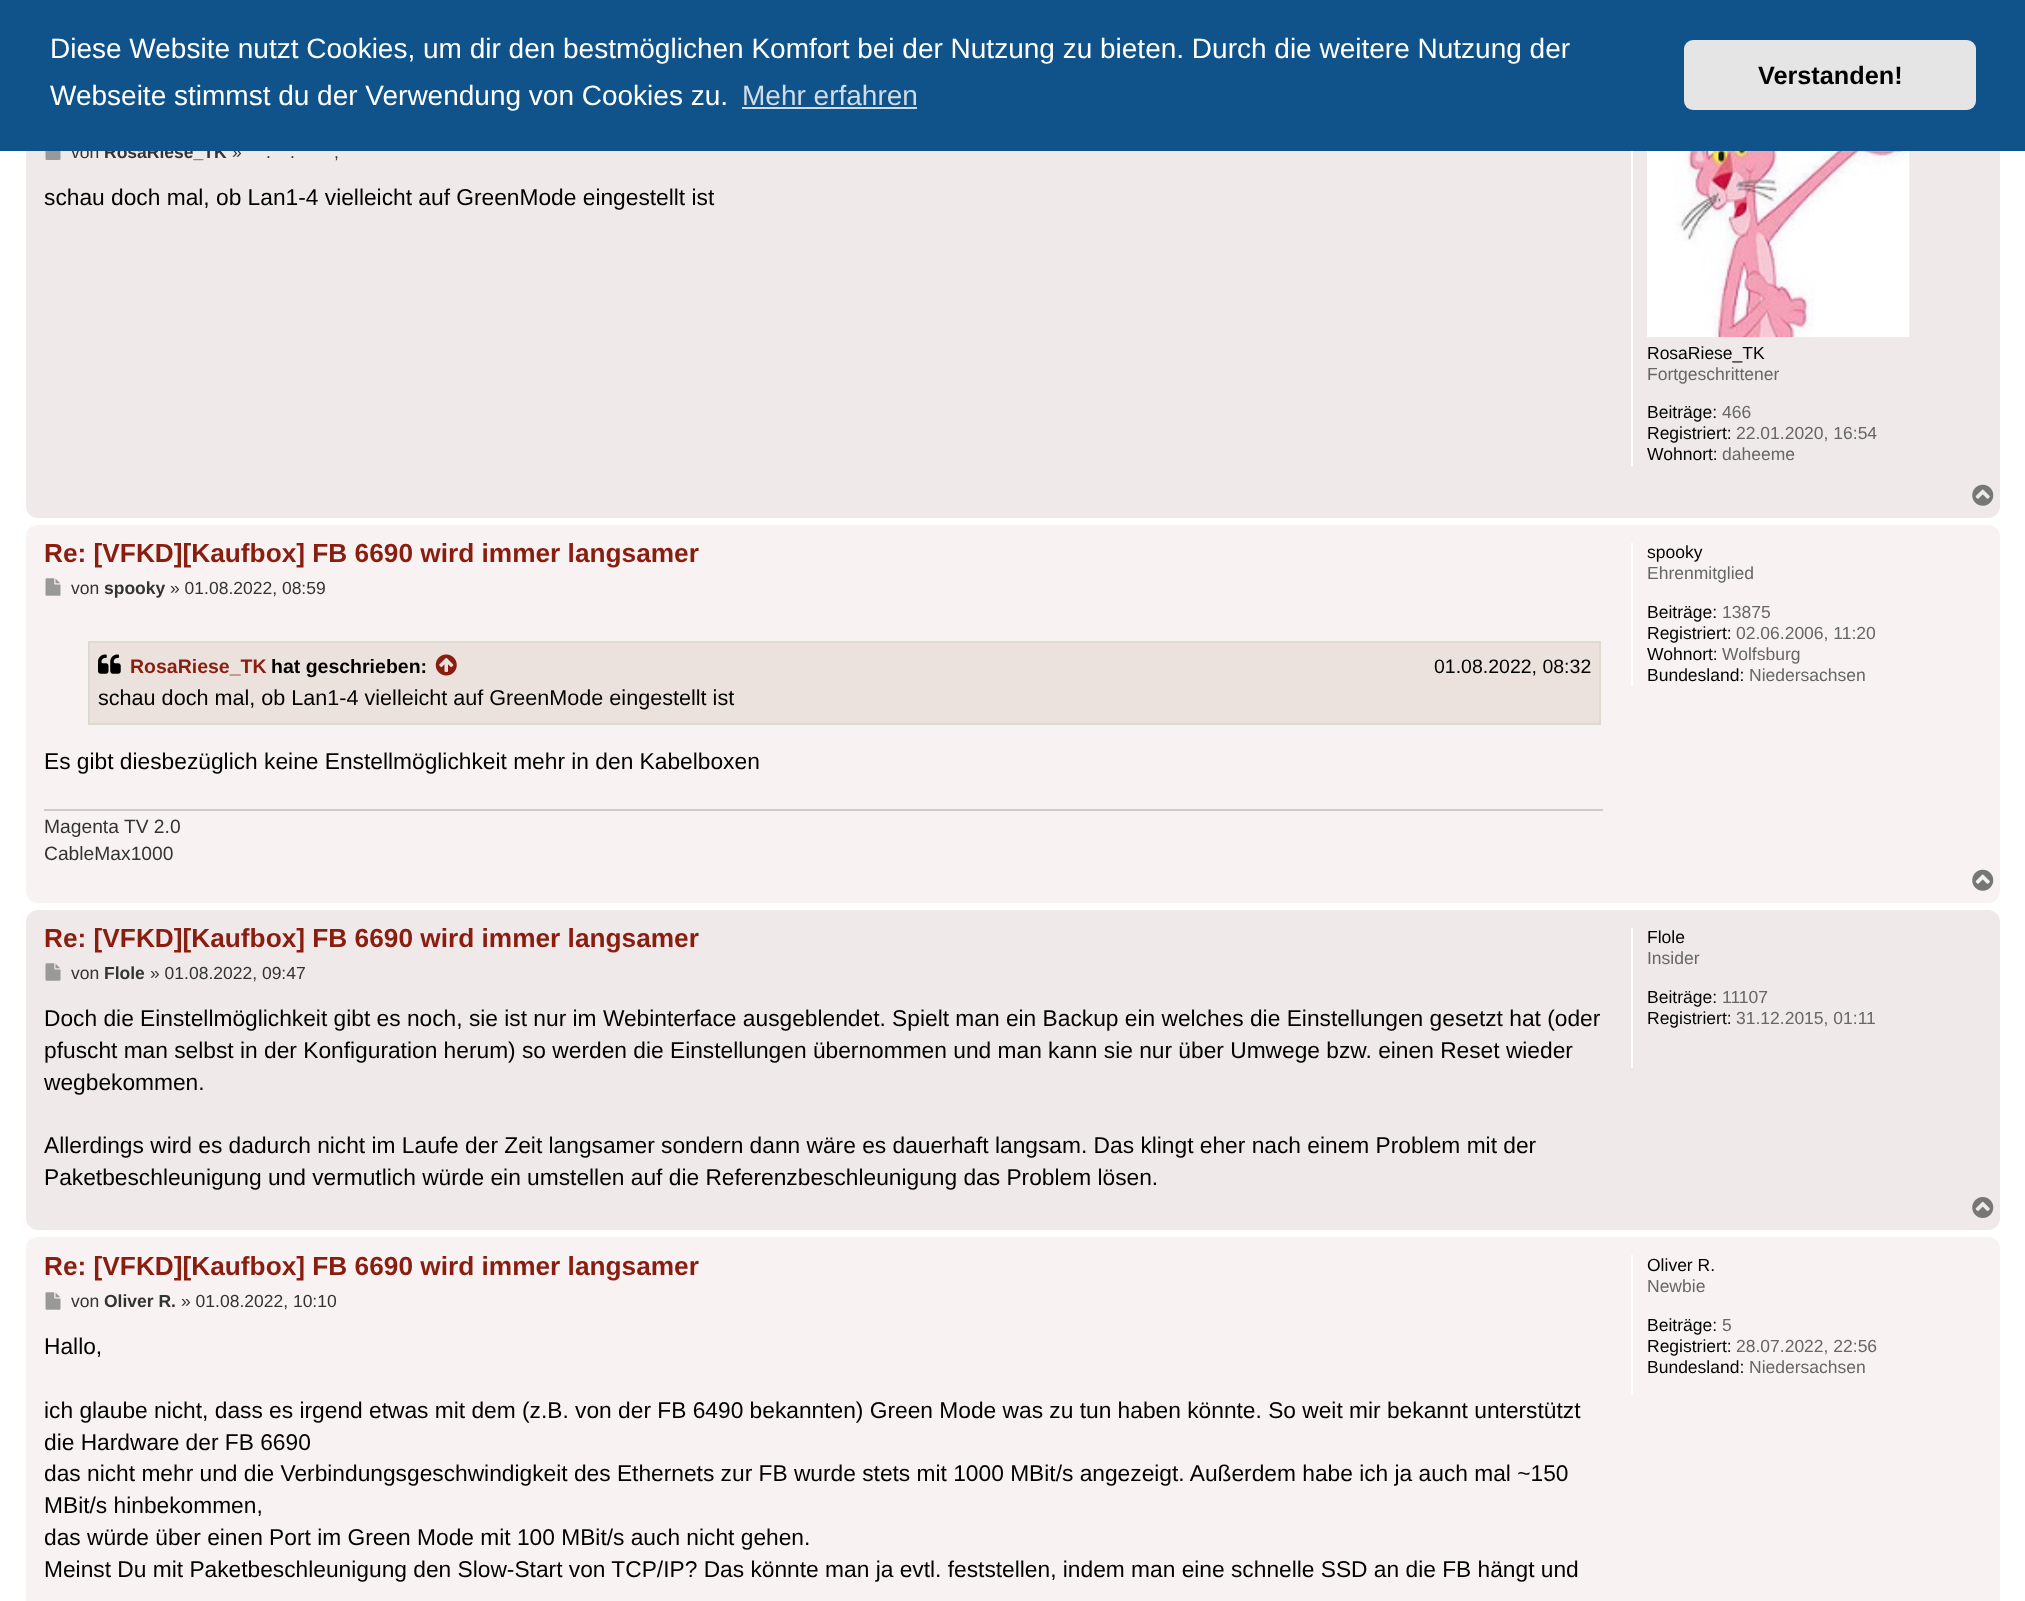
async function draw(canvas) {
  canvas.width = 2025;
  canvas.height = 1601;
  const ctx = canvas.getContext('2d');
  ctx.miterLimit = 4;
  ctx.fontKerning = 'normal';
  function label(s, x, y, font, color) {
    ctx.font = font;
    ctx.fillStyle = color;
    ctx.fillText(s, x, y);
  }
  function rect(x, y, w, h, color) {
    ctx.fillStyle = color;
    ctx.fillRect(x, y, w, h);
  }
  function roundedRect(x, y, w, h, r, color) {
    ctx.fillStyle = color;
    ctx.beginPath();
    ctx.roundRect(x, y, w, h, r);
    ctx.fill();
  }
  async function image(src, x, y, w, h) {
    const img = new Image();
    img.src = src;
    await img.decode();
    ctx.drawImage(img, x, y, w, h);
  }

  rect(0, 0, 2025, 1601, '#fff');
  roundedRect(26, 89, 1974, 429, 12, '#f0e9e9');
  label('von', 71, 158, '17.5px Liberation Sans', '#333');
  label('RosaRiese_TK', 104, 158, 'bold 17.5px Liberation Sans', '#333');
  label('»', 232, 158, '17.5px Liberation Sans', '#333');
  rect(0, 0, 2025, 151, '#0f538a');
  label('Diese Website nutzt Cookies, um dir den bestmöglichen Komfort bei der Nutzung zu bieten. Durch die weitere Nutzung der', 50, 58, '28px Liberation Sans', '#fff');
  label('Webseite stimmst du der Verwendung von Cookies zu.', 50, 105, '28px Liberation Sans', '#fff');
  label('Mehr erfahren', 742, 105, '28px Liberation Sans', '#cfdde8');
  rect(742, 107, 175, 2, '#cfdde8');
  roundedRect(1684, 40, 292, 70, 9, '#e5e5e5');
  label('Verstanden!', 1758, 84, 'bold 25.25px Liberation Sans', '#000');
  await image('assets/img1.png', 45, 151, 16, 9);
  label('.', 266, 158, '17.5px Liberation Sans', '#333');
  label('.', 290, 158, '17.5px Liberation Sans', '#333');
  label(',', 334, 158, '17.5px Liberation Sans', '#333');
  label('schau doch mal, ob Lan1-4 vielleicht auf GreenMode eingestellt ist', 44, 205, '22.75px Liberation Sans', '#000');
  rect(1631, 151, 2, 315, '#fff');
  await image('assets/img2.png', 1647, 151, 263, 187);
  label('RosaRiese_TK', 1647, 359, '17.5px Liberation Sans', '#000');
  label('Fortgeschrittener', 1647, 380, '17.5px Liberation Sans', '#666');
  label('Beiträge:', 1647, 418, '17.5px Liberation Sans', '#000');
  label('466', 1722, 418, '17.5px Liberation Sans', '#666');
  label('Registriert:', 1647, 439, '17.5px Liberation Sans', '#000');
  label('22.01.2020, 16:54', 1736, 439, '17.5px Liberation Sans', '#666');
  label('Wohnort:', 1647, 460, '17.5px Liberation Sans', '#000');
  label('daheeme', 1722, 460, '17.5px Liberation Sans', '#666');
  await image('assets/img3.png', 1972, 484, 22, 22);
  roundedRect(26, 525, 1974, 378, 12, '#f9f2f2');
  label('Re: [VFKD][Kaufbox] FB 6690 wird immer langsamer', 44, 562, 'bold 26.25px Liberation Sans', '#891d10');
  await image('assets/img4.png', 45, 578, 16, 18);
  label('von', 71, 594, '17.5px Liberation Sans', '#333');
  label('spooky', 104, 594, 'bold 17.5px Liberation Sans', '#333');
  label('» 01.08.2022, 08:59', 170, 594, '17.5px Liberation Sans', '#333');
  ctx.fillStyle = '#ebe2dd';
  ctx.beginPath();
  ctx.rect(89, 642, 1511, 82);
  ctx.fill();
  ctx.strokeStyle = '#dbdbce';
  ctx.lineWidth = 2;
  ctx.stroke();
  await image('assets/img5.png', 98, 654, 23, 20);
  label('RosaRiese_TK', 130, 673, 'bold 19.5px Liberation Sans', '#891d10');
  label('hat geschrieben:', 271, 673, 'bold 19.5px Liberation Sans', '#000');
  await image('assets/img6.png', 435, 654, 22, 22);
  label('01.08.2022, 08:32', 1434, 673, '19.5px Liberation Sans', '#000');
  label('schau doch mal, ob Lan1-4 vielleicht auf GreenMode eingestellt ist', 98, 705, '21.6px Liberation Sans', '#000');
  label('Es gibt diesbezüglich keine Enstellmöglichkeit mehr in den Kabelboxen', 44, 769, '22.75px Liberation Sans', '#000');
  rect(44, 809, 1559, 2, '#ccc');
  label('Magenta TV 2.0', 44, 833, '19.25px Liberation Sans', '#333');
  label('CableMax1000', 44, 860, '19.25px Liberation Sans', '#333');
  rect(1631, 543, 2, 143, '#fff');
  label('spooky', 1647, 558, '17.5px Liberation Sans', '#000');
  label('Ehrenmitglied', 1647, 579, '17.5px Liberation Sans', '#666');
  label('Beiträge:', 1647, 618, '17.5px Liberation Sans', '#000');
  label('13875', 1722, 618, '17.5px Liberation Sans', '#666');
  label('Registriert:', 1647, 639, '17.5px Liberation Sans', '#000');
  label('02.06.2006, 11:20', 1736, 639, '17.5px Liberation Sans', '#666');
  label('Wohnort:', 1647, 660, '17.5px Liberation Sans', '#000');
  label('Wolfsburg', 1722, 660, '17.5px Liberation Sans', '#666');
  label('Bundesland:', 1647, 681, '17.5px Liberation Sans', '#000');
  label('Niedersachsen', 1749, 681, '17.5px Liberation Sans', '#666');
  await image('assets/img7.png', 1972, 869, 22, 22);
  roundedRect(26, 910, 1974, 320, 12, '#f0e9e9');
  label('Re: [VFKD][Kaufbox] FB 6690 wird immer langsamer', 44, 947, 'bold 26.25px Liberation Sans', '#891d10');
  await image('assets/img8.png', 45, 963, 16, 18);
  label('von', 71, 979, '17.5px Liberation Sans', '#333');
  label('Flole', 104, 979, 'bold 17.5px Liberation Sans', '#333');
  label('» 01.08.2022, 09:47', 150, 979, '17.5px Liberation Sans', '#333');
  label('Doch die Einstellmöglichkeit gibt es noch, sie ist nur im Webinterface ausgeblendet. Spielt man ein Backup ein welches die Einstellungen gesetzt hat (oder', 44, 1026, '22.75px Liberation Sans', '#000');
  label('pfuscht man selbst in der Konfiguration herum) so werden die Einstellungen übernommen und man kann sie nur über Umwege bzw. einen Reset wieder', 44, 1058, '22.75px Liberation Sans', '#000');
  label('wegbekommen.', 44, 1090, '22.75px Liberation Sans', '#000');
  label('Allerdings wird es dadurch nicht im Laufe der Zeit langsamer sondern dann wäre es dauerhaft langsam. Das klingt eher nach einem Problem mit der', 44, 1153, '22.75px Liberation Sans', '#000');
  label('Paketbeschleunigung und vermutlich würde ein umstellen auf die Referenzbeschleunigung das Problem lösen.', 44, 1185, '22.75px Liberation Sans', '#000');
  rect(1631, 928, 2, 140, '#fff');
  label('Flole', 1647, 943, '17.5px Liberation Sans', '#000');
  label('Insider', 1647, 964, '17.5px Liberation Sans', '#666');
  label('Beiträge:', 1647, 1003, '17.5px Liberation Sans', '#000');
  label('11107', 1722, 1003, '17.5px Liberation Sans', '#666');
  label('Registriert:', 1647, 1024, '17.5px Liberation Sans', '#000');
  label('31.12.2015, 01:11', 1736, 1024, '17.5px Liberation Sans', '#666');
  await image('assets/img9.png', 1972, 1197, 22, 21);
  roundedRect(26, 1237, 1974, 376, 12, '#f9f2f2');
  label('Re: [VFKD][Kaufbox] FB 6690 wird immer langsamer', 44, 1275, 'bold 26.25px Liberation Sans', '#891d10');
  await image('assets/img4.png', 45, 1292, 16, 18);
  label('von', 71, 1307, '17.5px Liberation Sans', '#333');
  label('Oliver R.', 104, 1307, 'bold 17.5px Liberation Sans', '#333');
  label('» 01.08.2022, 10:10', 181, 1307, '17.5px Liberation Sans', '#333');
  label('Hallo,', 44, 1354, '22.75px Liberation Sans', '#000');
  label('ich glaube nicht, dass es irgend etwas mit dem (z.B. von der FB 6490 bekannten) Green Mode was zu tun haben könnte. So weit mir bekannt unterstützt', 44, 1418, '22.75px Liberation Sans', '#000');
  label('die Hardware der FB 6690', 44, 1450, '22.75px Liberation Sans', '#000');
  label('das nicht mehr und die Verbindungsgeschwindigkeit des Ethernets zur FB wurde stets mit 1000 MBit/s angezeigt. Außerdem habe ich ja auch mal ~150', 44, 1481, '22.75px Liberation Sans', '#000');
  label('MBit/s hinbekommen,', 44, 1513, '22.75px Liberation Sans', '#000');
  label('das würde über einen Port im Green Mode mit 100 MBit/s auch nicht gehen.', 44, 1545, '22.75px Liberation Sans', '#000');
  label('Meinst Du mit Paketbeschleunigung den Slow-Start von TCP/IP? Das könnte man ja evtl. feststellen, indem man eine schnelle SSD an die FB hängt und', 44, 1577, '22.75px Liberation Sans', '#000');
  rect(1631, 1255, 2, 140, '#fff');
  label('Oliver R.', 1647, 1271, '17.5px Liberation Sans', '#000');
  label('Newbie', 1647, 1292, '17.5px Liberation Sans', '#666');
  label('Beiträge:', 1647, 1331, '17.5px Liberation Sans', '#000');
  label('5', 1722, 1331, '17.5px Liberation Sans', '#666');
  label('Registriert:', 1647, 1352, '17.5px Liberation Sans', '#000');
  label('28.07.2022, 22:56', 1736, 1352, '17.5px Liberation Sans', '#666');
  label('Bundesland:', 1647, 1373, '17.5px Liberation Sans', '#000');
  label('Niedersachsen', 1749, 1373, '17.5px Liberation Sans', '#666');
}

draw(document.querySelector('canvas'));
